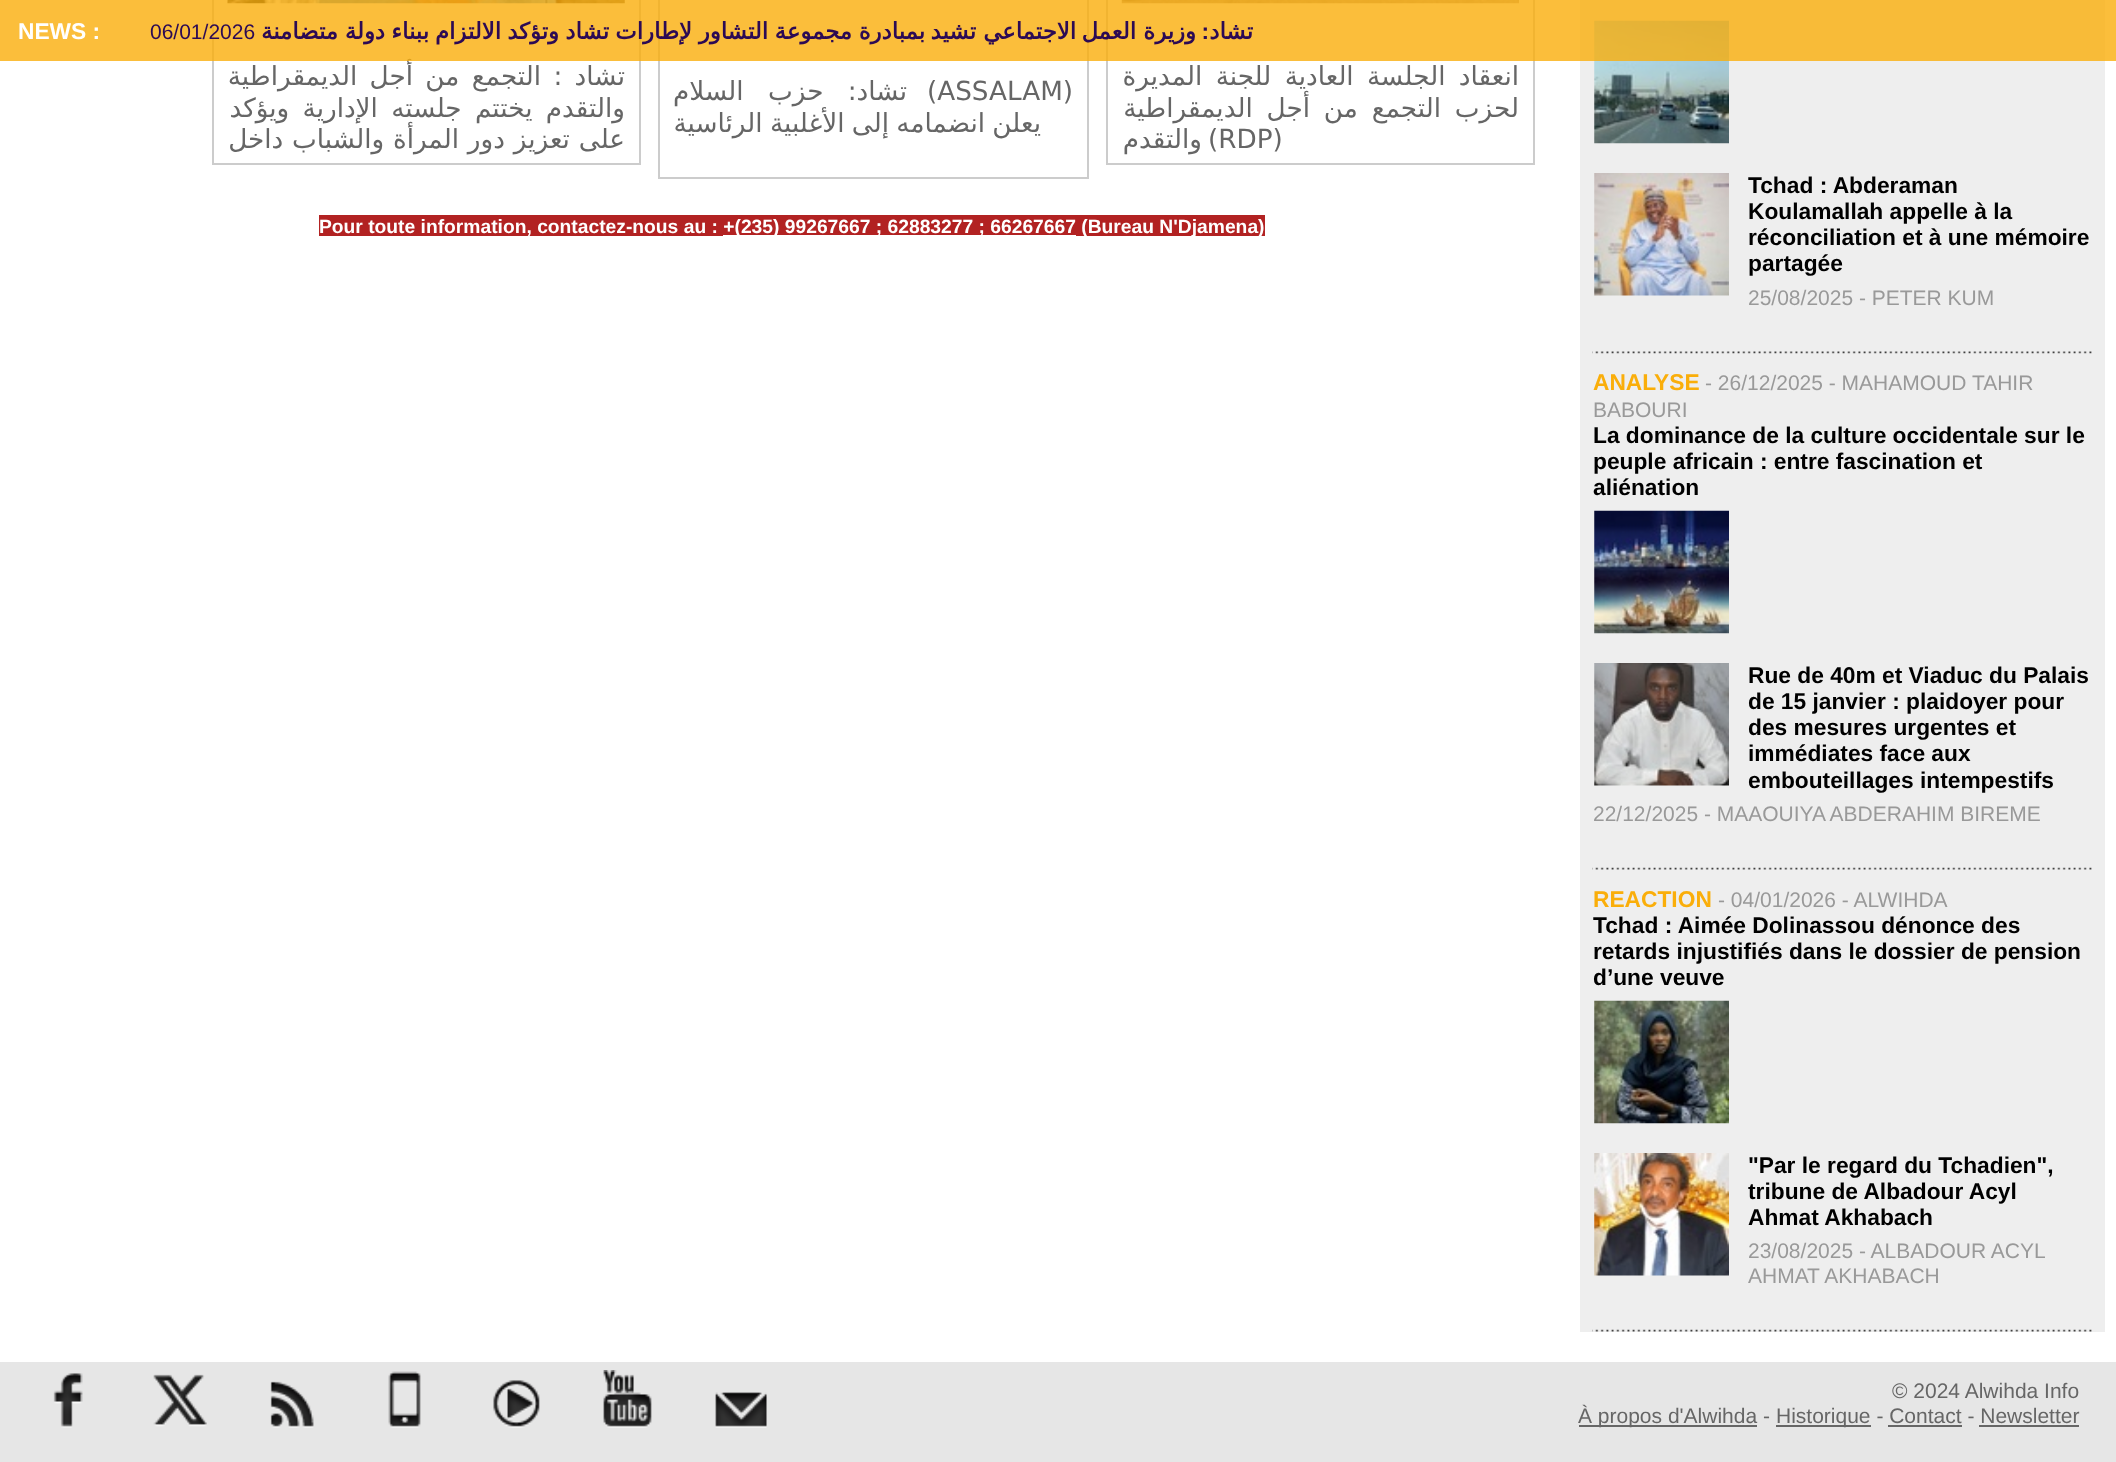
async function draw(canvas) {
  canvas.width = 2116;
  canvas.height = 1462;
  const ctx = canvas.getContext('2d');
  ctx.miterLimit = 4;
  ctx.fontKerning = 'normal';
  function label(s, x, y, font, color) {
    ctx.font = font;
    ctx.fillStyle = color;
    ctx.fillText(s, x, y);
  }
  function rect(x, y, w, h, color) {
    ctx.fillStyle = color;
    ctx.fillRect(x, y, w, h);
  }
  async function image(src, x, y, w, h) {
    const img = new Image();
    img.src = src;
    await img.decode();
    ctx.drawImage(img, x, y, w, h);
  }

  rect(0, 0, 2116, 1462, '#fff');
  ctx.strokeStyle = '#ccc';
  ctx.lineWidth = 2;
  ctx.strokeRect(213, -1, 427, 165);
  await image('assets/img1.png', 227, 0, 398, 4);
  ctx.wordSpacing = '4px';
  ctx.direction = 'rtl';
  label('تشاد : التجمع من أجل الديمقراطية', 625, 85, '26.25px DejaVu Sans', '#666');
  ctx.strokeRect(659, -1, 429, 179);
  ctx.strokeRect(1107, -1, 427, 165);
  await image('assets/img2.png', 1121, 0, 398, 4);
  rect(1580, 0, 525, 1332, '#eee');
  await image('assets/img3.png', 1594, 20, 135, 124);
  rect(0, 0, 2116, 61, '#faae0acc');
  ctx.wordSpacing = '0px';
  ctx.direction = 'ltr';
  label('NEWS :', 18, 39, 'bold 22.75px Liberation Sans', '#fff');
  label('06/01/2026', 150, 39, '21px Liberation Sans', '#2c0a54');
  ctx.direction = 'rtl';
  label('متضامنة', 338, 39, 'bold 22.75px DejaVu Sans', '#2c0a54');
  label('دولة', 385, 39, 'bold 22.75px DejaVu Sans', '#2c0a54');
  label('ببناء', 429, 39, 'bold 22.75px DejaVu Sans', '#2c0a54');
  label('الالتزام', 501, 39, 'bold 22.75px DejaVu Sans', '#2c0a54');
  label('وتؤكد', 559, 39, 'bold 22.75px DejaVu Sans', '#2c0a54');
  label('تشاد', 609, 39, 'bold 22.75px DejaVu Sans', '#2c0a54');
  label('لإطارات', 692, 39, 'bold 22.75px DejaVu Sans', '#2c0a54');
  label('التشاور', 768, 39, 'bold 22.75px DejaVu Sans', '#2c0a54');
  label('مجموعة', 852, 39, 'bold 22.75px DejaVu Sans', '#2c0a54');
  label('بمبادرة', 925, 39, 'bold 22.75px DejaVu Sans', '#2c0a54');
  label('تشيد', 976, 39, 'bold 22.75px DejaVu Sans', '#2c0a54');
  label('الاجتماعي', 1076, 39, 'bold 22.75px DejaVu Sans', '#2c0a54');
  label('العمل', 1136, 39, 'bold 22.75px DejaVu Sans', '#2c0a54');
  label('وزيرة', 1196, 39, 'bold 22.75px DejaVu Sans', '#2c0a54');
  label(':', 1209, 39, 'bold 22.75px Liberation Sans', '#2c0a54');
  label('تشاد', 1253, 39, 'bold 22.75px DejaVu Sans', '#2c0a54');
  ctx.wordSpacing = '5px';
  label('والتقدم يختتم جلسته الإدارية ويؤكد', 625, 117, '26.25px DejaVu Sans', '#666');
  ctx.wordSpacing = '0.5px';
  label('على تعزيز دور المرأة والشباب داخل', 625, 148, '26.25px DejaVu Sans', '#666');
  ctx.wordSpacing = '16px';
  label('تشاد: حزب السلام', 907, 100, '26.25px DejaVu Sans', '#666');
  ctx.wordSpacing = '0px';
  ctx.direction = 'ltr';
  label('(ASSALAM)', 927, 100, '26.25px DejaVu Sans', '#666');
  ctx.wordSpacing = '-1px';
  ctx.direction = 'rtl';
  label('يعلن انضمامه إلى الأغلبية الرئاسية', 1041, 132, '26.25px DejaVu Sans', '#666');
  ctx.wordSpacing = '5px';
  label('انعقاد الجلسة العادية للجنة المديرة', 1519, 85, '26.25px DejaVu Sans', '#666');
  ctx.wordSpacing = '5.5px';
  label('لحزب التجمع من أجل الديمقراطية', 1519, 117, '26.25px DejaVu Sans', '#666');
  ctx.wordSpacing = '0px';
  label('والتقدم', 1202, 148, '26.25px DejaVu Sans', '#666');
  ctx.direction = 'ltr';
  label('(RDP)', 1208, 148, '26.25px DejaVu Sans', '#666');
  rect(319, 215, 404, 21, '#b22222');
  rect(723, 215, 353, 20, '#b22222');
  rect(1076, 215, 189, 21, '#b22222');
  label('Pour toute information, contactez-nous au : +(235) 99267667 ; 62883277 ; 66267667 (Bureau N\'Djamena)', 319, 233, 'bold 19.25px Liberation Sans', '#fff');
  await image('assets/img4.png', 1594, 173, 135, 123);
  label('Tchad : Abderaman', 1748, 193, 'bold 22.75px Liberation Sans', '#000');
  label('Koulamallah appelle à la', 1748, 219, 'bold 22.75px Liberation Sans', '#000');
  label('réconciliation et à une mémoire', 1748, 245, 'bold 22.75px Liberation Sans', '#000');
  label('partagée', 1748, 271, 'bold 22.75px Liberation Sans', '#000');
  label('25/08/2025 - PETER KUM', 1748, 305, '21px Liberation Sans', '#999');
  await image('assets/img5.png', 1592, 351, 500, 3);
  label('ANALYSE', 1593, 390, 'bold 22.75px Liberation Sans', '#faae0a');
  label('- 26/12/2025 - MAHAMOUD TAHIR', 1705, 390, '21px Liberation Sans', '#999');
  label('BABOURI', 1593, 417, '21px Liberation Sans', '#999');
  label('La dominance de la culture occidentale sur le', 1593, 443, 'bold 22.75px Liberation Sans', '#000');
  label('peuple africain : entre fascination et', 1593, 469, 'bold 22.75px Liberation Sans', '#000');
  label('aliénation', 1593, 495, 'bold 22.75px Liberation Sans', '#000');
  await image('assets/img6.png', 1594, 510, 135, 124);
  await image('assets/img7.png', 1594, 663, 135, 123);
  label('Rue de 40m et Viaduc du Palais', 1748, 683, 'bold 22.75px Liberation Sans', '#000');
  label('de 15 janvier : plaidoyer pour', 1748, 709, 'bold 22.75px Liberation Sans', '#000');
  label('des mesures urgentes et', 1748, 735, 'bold 22.75px Liberation Sans', '#000');
  label('immédiates face aux', 1748, 761, 'bold 22.75px Liberation Sans', '#000');
  label('embouteillages intempestifs', 1748, 788, 'bold 22.75px Liberation Sans', '#000');
  label('22/12/2025 - MAAOUIYA ABDERAHIM BIREME', 1593, 821, '21px Liberation Sans', '#999');
  await image('assets/img8.png', 1592, 867, 500, 3);
  label('REACTION', 1593, 907, 'bold 22.75px Liberation Sans', '#faae0a');
  label('- 04/01/2026 - ALWIHDA', 1718, 907, '21px Liberation Sans', '#999');
  label('Tchad : Aimée Dolinassou dénonce des', 1593, 933, 'bold 22.75px Liberation Sans', '#000');
  label('retards injustifiés dans le dossier de pension', 1593, 959, 'bold 22.75px Liberation Sans', '#000');
  label('d’une veuve', 1593, 985, 'bold 22.75px Liberation Sans', '#000');
  await image('assets/img9.png', 1594, 1000, 135, 124);
  await image('assets/img10.png', 1594, 1153, 135, 123);
  label('"Par le regard du Tchadien",', 1748, 1173, 'bold 22.75px Liberation Sans', '#000');
  label('tribune de Albadour Acyl', 1748, 1199, 'bold 22.75px Liberation Sans', '#000');
  label('Ahmat Akhabach', 1748, 1225, 'bold 22.75px Liberation Sans', '#000');
  label('23/08/2025 - ALBADOUR ACYL', 1748, 1258, '21px Liberation Sans', '#999');
  label('AHMAT AKHABACH', 1748, 1283, '21px Liberation Sans', '#999');
  await image('assets/img8.png', 1592, 1329, 500, 3);
  rect(0, 1362, 2116, 100, '#e6e6e6');
  await image('assets/img11.png', 53, 1373, 30, 55);
  await image('assets/img12.png', 153, 1374, 54, 53);
  await image('assets/img13.png', 270, 1381, 44, 47);
  await image('assets/img14.png', 388, 1371, 33, 57);
  await image('assets/img15.png', 493, 1380, 47, 48);
  await image('assets/img16.png', 603, 1370, 49, 58);
  await image('assets/img17.png', 715, 1392, 52, 36);
  label('© 2024 Alwihda Info', 1892, 1398, '21px Liberation Sans', '#666');
  rect(1579, 1425, 178, 2, '#666');
  label('À propos d\'Alwihda -', 1578, 1423, '21px Liberation Sans', '#666');
  rect(1776, 1425, 95, 2, '#666');
  label('Historique - Contact - Newsletter', 1776, 1423, '21px Liberation Sans', '#666');
  rect(1888, 1425, 74, 2, '#666');
  rect(1979, 1425, 100, 2, '#666');
}

draw(document.querySelector('canvas'));
